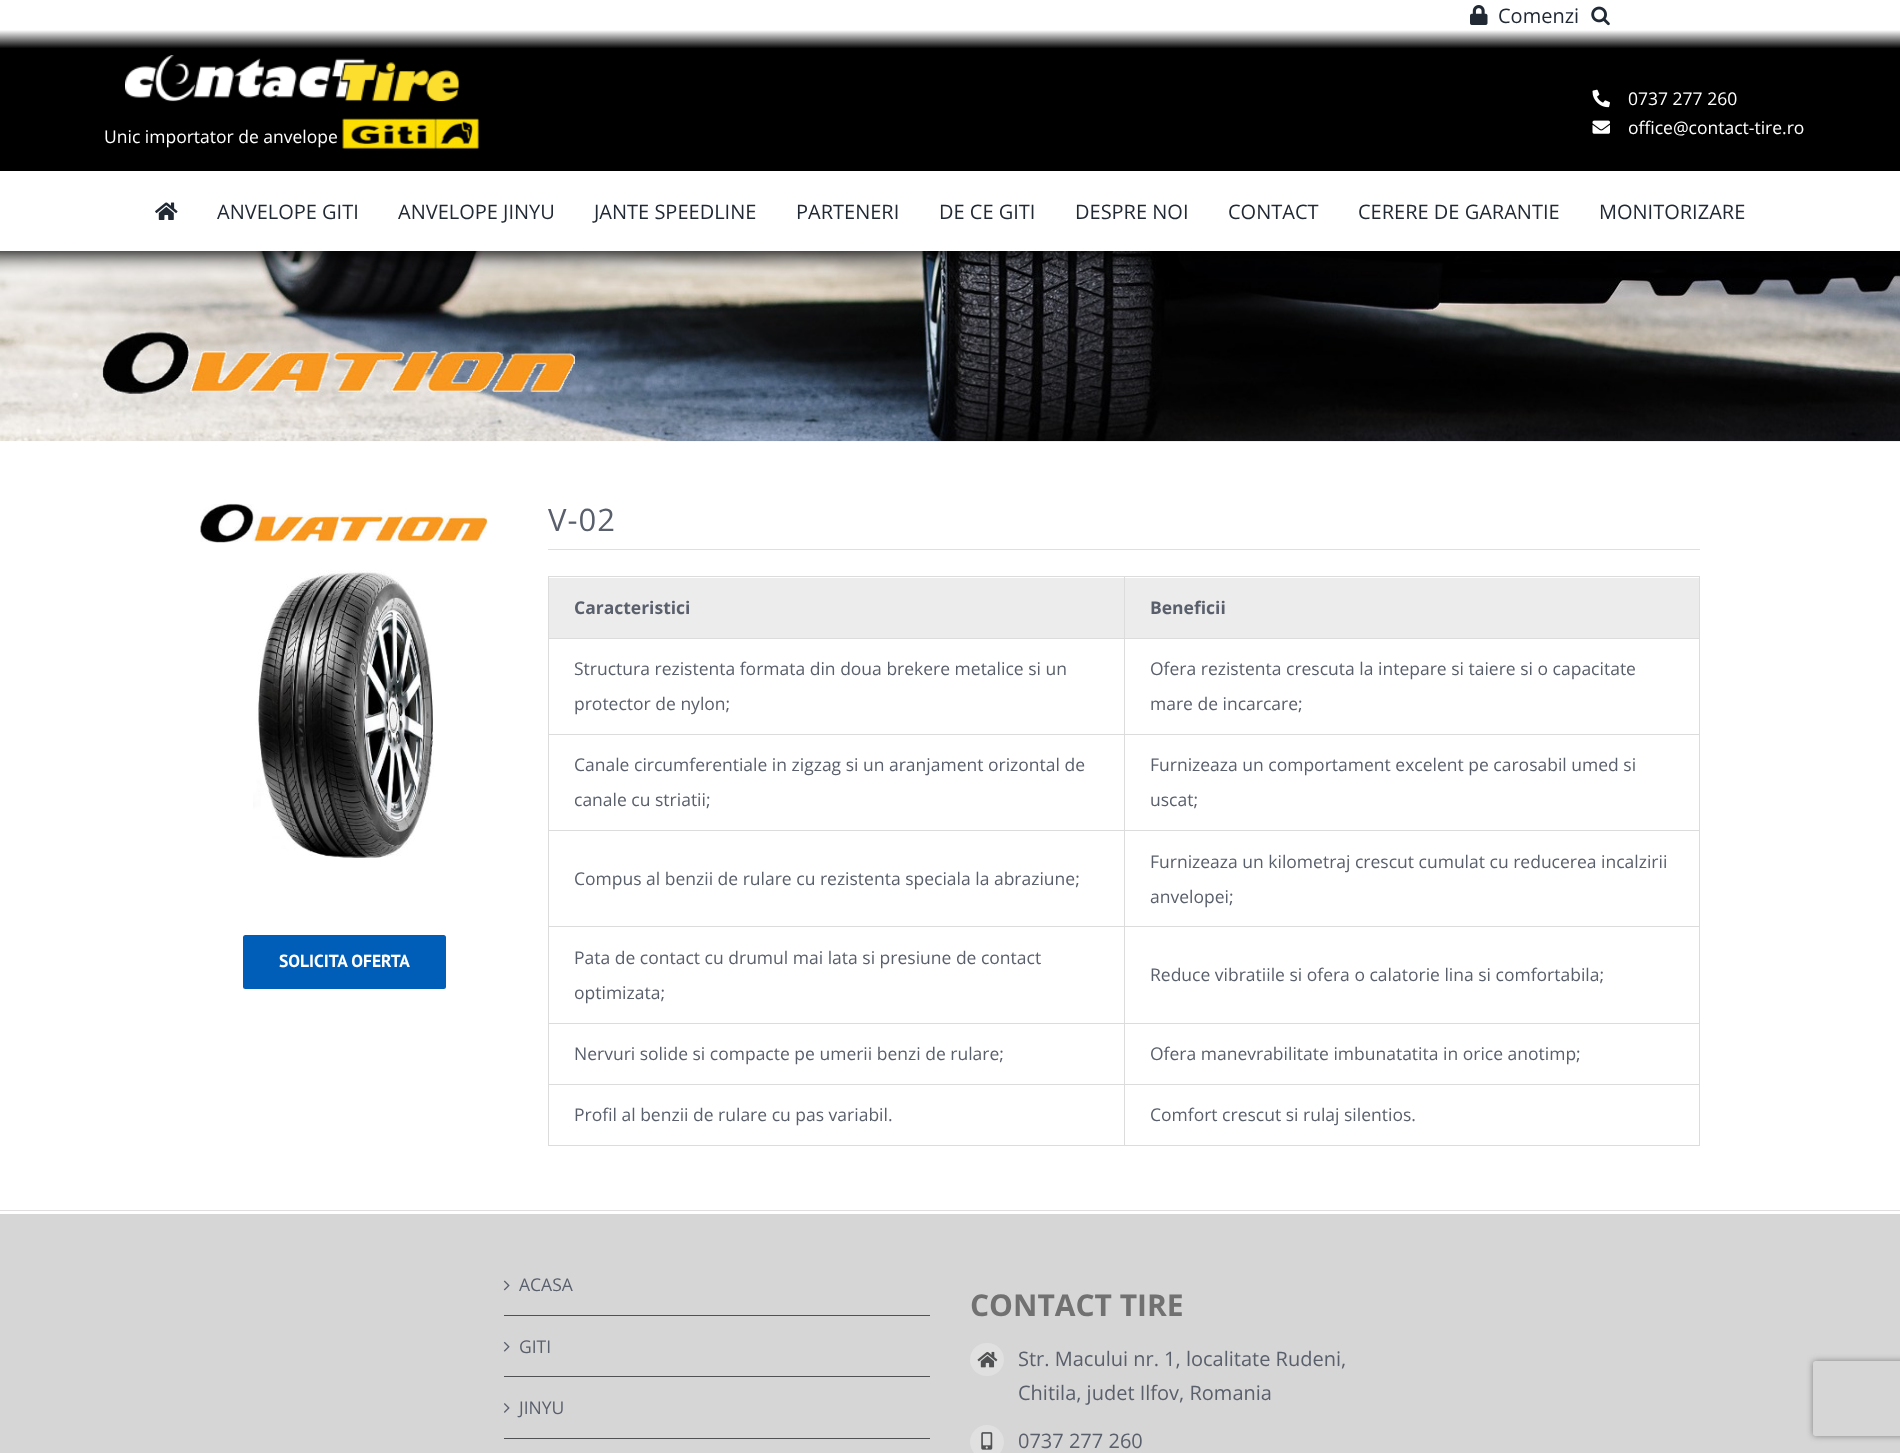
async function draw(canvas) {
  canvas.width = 1900;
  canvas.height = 1453;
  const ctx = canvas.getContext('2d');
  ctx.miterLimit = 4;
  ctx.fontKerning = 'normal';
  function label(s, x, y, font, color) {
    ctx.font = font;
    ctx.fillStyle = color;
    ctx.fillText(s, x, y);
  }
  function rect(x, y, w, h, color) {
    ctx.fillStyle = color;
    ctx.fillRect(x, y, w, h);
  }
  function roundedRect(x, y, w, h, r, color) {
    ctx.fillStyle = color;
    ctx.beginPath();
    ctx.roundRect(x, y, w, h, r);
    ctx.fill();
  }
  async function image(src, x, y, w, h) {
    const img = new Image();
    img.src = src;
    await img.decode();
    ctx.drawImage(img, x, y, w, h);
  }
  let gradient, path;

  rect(0, 0, 1900, 1453, '#fff');
  await image('assets/img1.png', 1470, 5, 18, 20);
  label('Comenzi', 1498, 23, '20px Open Sans', '#212934');
  await image('assets/img2.png', 1591, 6, 19, 20);
  gradient = ctx.createLinearGradient(950, 30, 950, 214);
  gradient.addColorStop(0, '#fff');
  gradient.addColorStop(0.1, '#000');
  ctx.fillStyle = gradient;
  ctx.fillRect(0, 30, 1900, 141);
  await image('assets/img3.png', 1592, 89, 18, 19);
  label('0737 277 260', 1628, 105, '17.5px Open Sans', '#fff');
  await image('assets/img4.png', 1592, 120, 18, 14);
  label('office@contact-tire.ro', 1628, 134, '17.5px Open Sans', '#fff');
  await image('assets/img5.png', 125, 55, 334, 47);
  label('Unic importator de anvelope', 104, 143, '17.5px Open Sans', '#fff');
  await image('assets/img6.png', 342, 118, 137, 31);
  await image('assets/img8.png', 0, 251, 1900, 191);
  ctx.fillStyle = '#000';
  ctx.filter = 'blur(9.5px)';
  ctx.beginPath();
  ctx.roundRect(-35, 175, 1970, 80, 6);
  ctx.fill();
  ctx.filter = 'none';
  rect(0, 171, 1900, 80, '#fff');
  await image('assets/img7.png', 155, 202, 23, 18);
  label('ANVELOPE GITI', 217, 219, '20px Open Sans', '#212934');
  label('ANVELOPE JINYU', 398, 219, '20px Open Sans', '#212934');
  label('JANTE SPEEDLINE', 594, 219, '20px Open Sans', '#212934');
  label('PARTENERI', 796, 219, '20px Open Sans', '#212934');
  label('DE CE GITI', 939, 219, '20px Open Sans', '#212934');
  label('DESPRE NOI', 1075, 219, '20px Open Sans', '#212934');
  label('CONTACT', 1228, 219, '20px Open Sans', '#212934');
  label('CERERE DE GARANTIE', 1358, 219, '20px Open Sans', '#212934');
  label('MONITORIZARE', 1599, 219, '20px Open Sans', '#212934');
  await image('assets/img9.png', 200, 503, 288, 40);
  await image('assets/img10.png', 253, 570, 181, 288);
  roundedRect(243, 935, 203, 54, 2.5, '#005eb8');
  label('SOLICITA OFERTA', 279, 967, 'bold 17.5px PT Sans', '#fff');
  ctx.letterSpacing = '1px';
  label('V-02', 548, 531, '31px Open Sans', '#595f6b');
  rect(548, 549, 1152, 1, '#e0dede');
  rect(548, 576, 1152, 1, '#dcdcdc');
  rect(1699, 576, 1, 570, '#dcdcdc');
  rect(548, 1145, 1152, 1, '#dcdcdc');
  rect(548, 576, 1, 570, '#dcdcdc');
  rect(549, 578, 575, 60, '#ececec');
  ctx.letterSpacing = '0px';
  label('Caracteristici', 574, 614, 'bold 17.5px Open Sans', '#595f6b');
  rect(1125, 578, 574, 60, '#ececec');
  rect(1124, 638, 576, 1, '#dcdcdc');
  rect(1124, 734, 576, 1, '#dcdcdc');
  rect(1124, 830, 576, 1, '#dcdcdc');
  rect(1124, 926, 576, 1, '#dcdcdc');
  rect(1124, 1023, 576, 1, '#dcdcdc');
  rect(1124, 1084, 576, 1, '#dcdcdc');
  rect(1124, 1084, 1, 62, '#dcdcdc');
  rect(548, 1084, 577, 1, '#dcdcdc');
  rect(1124, 1023, 1, 62, '#dcdcdc');
  rect(548, 1023, 577, 1, '#dcdcdc');
  rect(1124, 926, 1, 98, '#dcdcdc');
  rect(548, 926, 577, 1, '#dcdcdc');
  rect(1124, 830, 1, 98, '#dcdcdc');
  rect(548, 830, 577, 1, '#dcdcdc');
  rect(1124, 734, 1, 97, '#dcdcdc');
  rect(548, 734, 577, 1, '#dcdcdc');
  rect(1124, 638, 1, 97, '#dcdcdc');
  rect(548, 638, 577, 1, '#dcdcdc');
  rect(1124, 576, 1, 63, '#dcdcdc');
  label('Beneficii', 1150, 614, 'bold 17.5px Open Sans', '#595f6b');
  label('Structura rezistenta formata din doua brekere metalice si un', 574, 675, '17.5px Open Sans', '#595f6b');
  label('protector de nylon;', 574, 710, '17.5px Open Sans', '#595f6b');
  label('Ofera rezistenta crescuta la intepare si taiere si o capacitate', 1150, 675, '17.5px Open Sans', '#595f6b');
  label('mare de incarcare;', 1150, 710, '17.5px Open Sans', '#595f6b');
  label('Canale circumferentiale in zigzag si un aranjament orizontal de', 574, 771, '17.5px Open Sans', '#595f6b');
  label('canale cu striatii;', 574, 806, '17.5px Open Sans', '#595f6b');
  label('Furnizeaza un comportament excelent pe carosabil umed si', 1150, 771, '17.5px Open Sans', '#595f6b');
  label('uscat;', 1150, 806, '17.5px Open Sans', '#595f6b');
  label('Compus al benzii de rulare cu rezistenta speciala la abraziune;', 574, 885, '17.5px Open Sans', '#595f6b');
  label('Furnizeaza un kilometraj crescut cumulat cu reducerea incalzirii', 1150, 868, '17.5px Open Sans', '#595f6b');
  label('anvelopei;', 1150, 903, '17.5px Open Sans', '#595f6b');
  label('Pata de contact cu drumul mai lata si presiune de contact', 574, 964, '17.5px Open Sans', '#595f6b');
  label('optimizata;', 574, 999, '17.5px Open Sans', '#595f6b');
  label('Reduce vibratiile si ofera o calatorie lina si comfortabila;', 1150, 981, '17.5px Open Sans', '#595f6b');
  label('Nervuri solide si compacte pe umerii benzi de rulare;', 574, 1060, '17.5px Open Sans', '#595f6b');
  label('Ofera manevrabilitate imbunatatita in orice anotimp;', 1150, 1060, '17.5px Open Sans', '#595f6b');
  label('Profil al benzii de rulare cu pas variabil.', 574, 1121, '17.5px Open Sans', '#595f6b');
  label('Comfort crescut si rulaj silentios.', 1150, 1121, '17.5px Open Sans', '#595f6b');
  rect(0, 1210, 1900, 1, '#e0dede');
  rect(0, 1214, 1900, 239, '#d7d6d6');
  rect(504, 1315, 426, 1, '#505152');
  await image('assets/img11.png', 503, 1280, 7, 11);
  label('ACASA', 519, 1291, '17.5px Open Sans', '#595f6b');
  rect(504, 1376, 426, 1, '#505152');
  await image('assets/img12.png', 503, 1341, 7, 11);
  label('GITI', 519, 1353, '17.5px Open Sans', '#595f6b');
  rect(504, 1438, 426, 1, '#505152');
  await image('assets/img13.png', 504, 1403, 6, 10);
  label('JINYU', 519, 1414, '17.5px Open Sans', '#595f6b');
  label('CONTACT TIRE', 970, 1316, 'bold 30px Open Sans', '#717171');
  roundedRect(970, 1343, 34, 33, 16.5, '#e0e0e0');
  await image('assets/img14.png', 977, 1351, 21, 17);
  label('Str. Macului nr. 1, localitate Rudeni,', 1018, 1366, '20px Open Sans', '#595f6b');
  label('Chitila, judet Ilfov, Romania', 1018, 1400, '20px Open Sans', '#595f6b');
  ctx.fillStyle = '#e0e0e0';
  ctx.beginPath();
  ctx.arc(987, 1442, 17, 0, 2 * Math.PI);
  ctx.fill();
  await image('assets/img15.png', 981, 1432, 12, 18);
  label('0737 277 260', 1018, 1448, '20px Open Sans', '#595f6b');
  ctx.save();
  path = new Path2D('M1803 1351H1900V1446H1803ZM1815.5 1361H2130.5C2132 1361 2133 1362 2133 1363.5V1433.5C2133 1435 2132 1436 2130.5 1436H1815.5C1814 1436 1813 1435 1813 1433.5V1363.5C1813 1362 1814 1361 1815.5 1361Z');
  ctx.clip(path, 'evenodd');
  ctx.fillStyle = '#808080';
  ctx.filter = 'blur(3px)';
  ctx.beginPath();
  ctx.roundRect(1813, 1361, 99, 75, 2.5);
  ctx.fill();
  ctx.filter = 'none';
  ctx.restore();
}

draw(document.querySelector('canvas'));
